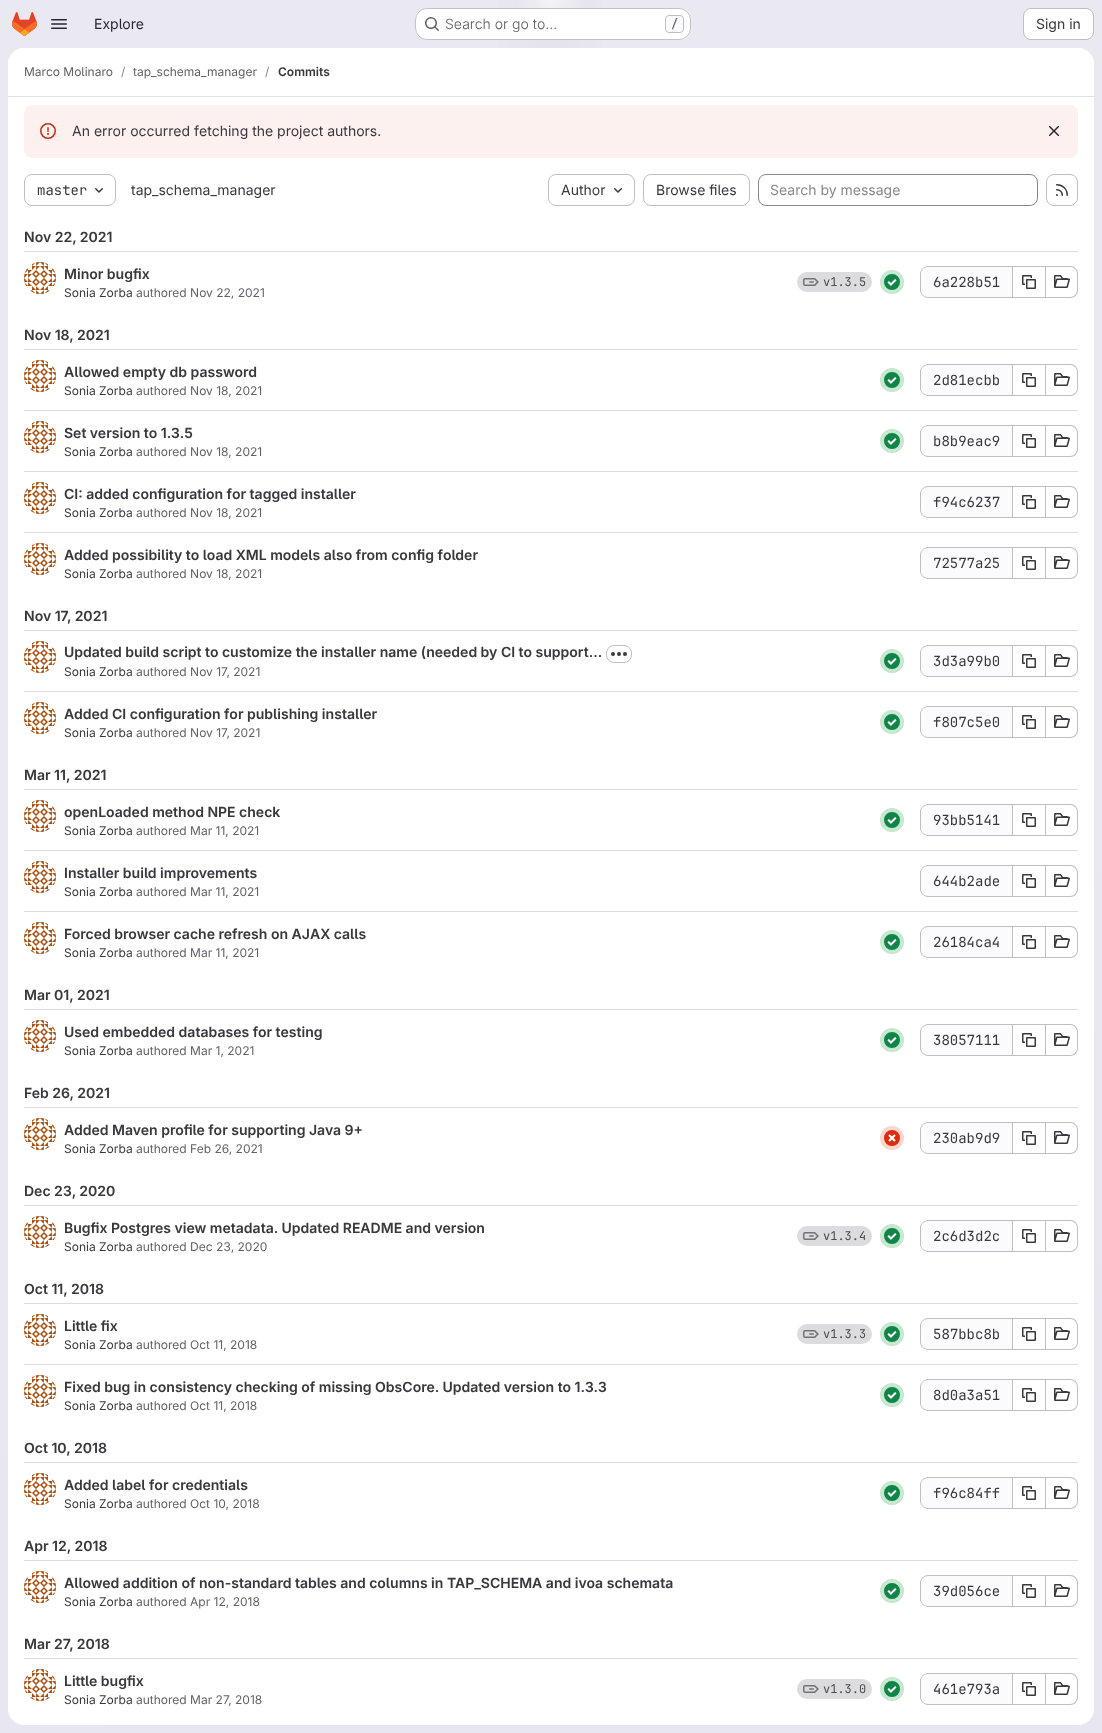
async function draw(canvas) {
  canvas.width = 1102;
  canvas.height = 1733;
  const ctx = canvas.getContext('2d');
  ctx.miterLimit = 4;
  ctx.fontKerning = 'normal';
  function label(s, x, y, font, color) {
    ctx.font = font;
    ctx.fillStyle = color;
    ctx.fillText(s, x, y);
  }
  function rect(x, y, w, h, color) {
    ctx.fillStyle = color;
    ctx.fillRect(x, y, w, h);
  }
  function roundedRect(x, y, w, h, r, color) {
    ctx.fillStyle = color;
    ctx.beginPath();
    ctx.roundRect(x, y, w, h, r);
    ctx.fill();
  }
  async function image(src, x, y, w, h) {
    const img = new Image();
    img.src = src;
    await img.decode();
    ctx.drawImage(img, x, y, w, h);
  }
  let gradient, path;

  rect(0, 0, 1102, 1733, '#fff');
  gradient = ctx.createLinearGradient(716, 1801, 386, -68);
  gradient.addColorStop(0, '#e8e6f0');
  gradient.addColorStop(0.7, '#eae9f2');
  ctx.fillStyle = gradient;
  ctx.fillRect(0, 0, 1102, 1733);
  gradient = ctx.createRadialGradient(551, 0, 0, 551, 0, 551);
  gradient.addColorStop(0, '#e4e2ed');
  gradient.addColorStop(0.13, '#e4e2ed00');
  ctx.fillStyle = gradient;
  ctx.beginPath();
  ctx.rect(499, 0, 104, 48);
  ctx.save();
  ctx.clip();
  ctx.scale(1, 1733 / 551);
  ctx.fillRect(0, 0, 1102, 551);
  ctx.restore();
  gradient = ctx.createRadialGradient(551, 0, 0, 551, 0, 551);
  gradient.addColorStop(0, '#e4e2ec');
  gradient.addColorStop(0.09, '#e4e2ec00');
  ctx.fillStyle = gradient;
  ctx.beginPath();
  ctx.rect(533, 0, 37, 41);
  ctx.save();
  ctx.clip();
  ctx.scale(1, 1733 / 551);
  ctx.fillRect(0, 0, 1102, 551);
  ctx.restore();
  gradient = ctx.createRadialGradient(551, 0, 0, 551, 0, 1818);
  gradient.addColorStop(0, '#ffffff99');
  gradient.addColorStop(0.02, '#ffffff00');
  ctx.fillStyle = gradient;
  ctx.fillRect(516, 0, 70, 8);
  await image('assets/img1.png', 12, 12, 25, 24);
  await image('assets/img2.png', 51, 19, 16, 10);
  label('Explore', 94, 29, '14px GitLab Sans', '#28272d');
  roundedRect(415, 8, 276, 32, 12, '#fff');
  ctx.beginPath();
  ctx.roundRect(415.5, 8.5, 275, 31, 11.5);
  ctx.strokeStyle = '#0505063d';
  ctx.stroke();
  await image('assets/img3.png', 425, 17, 14, 14);
  label('Search or go to…', 445, 29, '300 14px GitLab Sans', '#626168');
  ctx.fillStyle = '#fbfafd';
  ctx.beginPath();
  ctx.roundRect(665.5, 15.5, 18, 17, 3.5);
  ctx.fill();
  ctx.strokeStyle = '#bfbfc3';
  ctx.stroke();
  label('/', 671, 28, '500 12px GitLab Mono', '#626168');
  ctx.fillStyle = '#fff';
  ctx.beginPath();
  ctx.roundRect(1023.5, 8.5, 70, 31, 7.5);
  ctx.fill();
  ctx.stroke();
  label('Sign in', 1036, 29, '14px GitLab Sans', '#3a383f');
  roundedRect(8, 48, 1086, 1677, 16, '#fff');
  ctx.beginPath();
  ctx.roundRect(8, 48, 1086, 49, [16, 16, 0, 0]);
  ctx.fill();
  rect(8, 96, 1086, 1, '#e1dfec');
  label('Marco Molinaro', 24, 76, '12px GitLab Sans', '#626168');
  label('/', 121, 76, '12px GitLab Sans', '#89888d');
  label('tap_schema_manager', 133, 76, '12px GitLab Sans', '#626168');
  label('/', 265, 76, '12px GitLab Sans', '#89888d');
  label('Commits', 278, 76, '600 12px GitLab Sans', '#3a383f');
  roundedRect(24, 105, 1054, 53, 8, '#fcf1ef');
  await image('assets/img4.png', 40, 123, 16, 16);
  label('An error occurred fetching the project authors.', 72, 136, '14px GitLab Sans', '#3a383f');
  await image('assets/img5.png', 1049, 126, 10, 10);
  ctx.beginPath();
  ctx.roundRect(24.5, 174.5, 91, 31, 7.5);
  ctx.stroke();
  label('master', 37, 195, '14px GitLab Mono', '#3a383f');
  await image('assets/img6.png', 95, 188, 8, 5);
  label('tap_schema_manager', 131, 195, '14px GitLab Sans', '#3a383f');
  ctx.beginPath();
  ctx.roundRect(548.5, 174.5, 86, 31, 7.5);
  ctx.stroke();
  label('Author', 561, 195, '14px GitLab Sans', '#3a383f');
  await image('assets/img6.png', 614, 188, 8, 5);
  ctx.beginPath();
  ctx.roundRect(643.5, 174.5, 106, 31, 7.5);
  ctx.stroke();
  label('Browse files', 656, 195, '14px GitLab Sans', '#3a383f');
  ctx.beginPath();
  ctx.roundRect(758.5, 174.5, 279, 31, 7.5);
  ctx.strokeStyle = '#89888d';
  ctx.stroke();
  label('Search by message', 770, 195, '14px GitLab Sans', '#89888d');
  ctx.beginPath();
  ctx.roundRect(1046.5, 174.5, 31, 31, 7.5);
  ctx.strokeStyle = '#bfbfc3';
  ctx.stroke();
  await image('assets/img7.png', 1056, 184, 12, 12);
  label('Nov 22, 2021', 24, 242, '600 14px GitLab Sans', '#3a383f');
  rect(24, 251, 1054, 1, '#dcdcde');
  ctx.beginPath();
  ctx.arc(40, 278, 15.5, 0, 2 * Math.PI);
  ctx.strokeStyle = '#e8e7ea';
  ctx.stroke();
  await image('assets/img8.png', 24, 262, 32, 32);
  label('Minor bugfix', 64, 279, '600 14px GitLab Sans', '#3a383f');
  label('Sonia Zorba', 64, 297, '12px GitLab Sans', '#3a383f');
  label('authored Nov 22, 2021', 136, 297, '12px GitLab Sans', '#626168');
  roundedRect(797, 272, 75, 20, 10, '#dcdcde');
  await image('assets/img9.png', 803, 278, 16, 8);
  label('v1.3.5', 823, 286, '12px GitLab Mono', '#4c4b51');
  ctx.beginPath();
  ctx.arc(892, 282, 11, 0, 2 * Math.PI);
  ctx.strokeStyle = '#c3e6cd';
  ctx.lineWidth = 2;
  ctx.stroke();
  ctx.fillStyle = '#108548';
  ctx.beginPath();
  ctx.arc(892, 282, 9, 0, 2 * Math.PI);
  ctx.fill();
  ctx.stroke();
  await image('assets/img10.png', 887, 279, 10, 7);
  ctx.fillStyle = '#fbfafd';
  ctx.beginPath();
  ctx.roundRect(921, 267, 91, 30, [7, 0, 0, 7]);
  ctx.fill();
  ctx.fillStyle = '#bfbfc3';
  path = new Path2D('M928 266H1012V298H928C924 298 920 294 920 290V274C920 270 924 266 928 266ZM928 267H1012V297H928C924 297 921 294 921 290V274C921 270 924 267 928 267Z');
  ctx.fill(path, 'evenodd');
  label('6a228b51', 933, 287, '14px GitLab Mono', '#3a383f');
  rect(1013, 266, 32, 1, '#bfbfc3');
  rect(1013, 297, 32, 1, '#bfbfc3');
  rect(1012, 266, 1, 32, '#bfbfc3');
  await image('assets/img11.png', 1022, 275, 14, 14);
  path = new Path2D('M1046 266H1070C1074.5 266 1078 269.5 1078 274V290C1078 294.5 1074.5 298 1070 298H1046ZM1046 267H1070C1074 267 1077 270 1077 274V290C1077 294 1074 297 1070 297H1046Z');
  ctx.fill(path, 'evenodd');
  rect(1045, 266, 1, 32, '#bfbfc3');
  await image('assets/img12.png', 1054, 275, 16, 13);
  label('Nov 18, 2021', 24, 340, '600 14px GitLab Sans', '#3a383f');
  rect(24, 349, 1054, 1, '#dcdcde');
  rect(24, 410, 1054, 1, '#dcdcde');
  ctx.beginPath();
  ctx.arc(40, 376, 15.5, 0, 2 * Math.PI);
  ctx.strokeStyle = '#e8e7ea';
  ctx.lineWidth = 1;
  ctx.stroke();
  await image('assets/img8.png', 24, 360, 32, 32);
  label('Allowed empty db password', 64, 377, '600 14px GitLab Sans', '#3a383f');
  label('Sonia Zorba', 64, 395, '12px GitLab Sans', '#3a383f');
  label('authored Nov 18, 2021', 136, 395, '12px GitLab Sans', '#626168');
  ctx.beginPath();
  ctx.arc(892, 380, 11, 0, 2 * Math.PI);
  ctx.strokeStyle = '#c3e6cd';
  ctx.lineWidth = 2;
  ctx.stroke();
  ctx.fillStyle = '#108548';
  ctx.beginPath();
  ctx.arc(892, 380, 9, 0, 2 * Math.PI);
  ctx.fill();
  ctx.stroke();
  await image('assets/img10.png', 887, 377, 10, 7);
  ctx.fillStyle = '#fbfafd';
  ctx.beginPath();
  ctx.roundRect(921, 365, 91, 30, [7, 0, 0, 7]);
  ctx.fill();
  ctx.fillStyle = '#bfbfc3';
  path = new Path2D('M928 364H1012V396H928C924 396 920 392 920 388V372C920 368 924 364 928 364ZM928 365H1012V395H928C924 395 921 392 921 388V372C921 368 924 365 928 365Z');
  ctx.fill(path, 'evenodd');
  label('2d81ecbb', 933, 385, '14px GitLab Mono', '#3a383f');
  rect(1013, 364, 32, 1, '#bfbfc3');
  rect(1013, 395, 32, 1, '#bfbfc3');
  rect(1012, 364, 1, 32, '#bfbfc3');
  await image('assets/img11.png', 1022, 373, 14, 14);
  path = new Path2D('M1046 364H1070C1074.5 364 1078 367.5 1078 372V388C1078 392.5 1074.5 396 1070 396H1046ZM1046 365H1070C1074 365 1077 368 1077 372V388C1077 392 1074 395 1070 395H1046Z');
  ctx.fill(path, 'evenodd');
  rect(1045, 364, 1, 32, '#bfbfc3');
  await image('assets/img12.png', 1054, 373, 16, 13);
  rect(24, 471, 1054, 1, '#dcdcde');
  ctx.beginPath();
  ctx.arc(40, 437, 15.5, 0, 2 * Math.PI);
  ctx.strokeStyle = '#e8e7ea';
  ctx.lineWidth = 1;
  ctx.stroke();
  await image('assets/img8.png', 24, 421, 32, 32);
  label('Set version to 1.3.5', 64, 438, '600 14px GitLab Sans', '#3a383f');
  label('Sonia Zorba', 64, 456, '12px GitLab Sans', '#3a383f');
  label('authored Nov 18, 2021', 136, 456, '12px GitLab Sans', '#626168');
  ctx.beginPath();
  ctx.arc(892, 441, 11, 0, 2 * Math.PI);
  ctx.strokeStyle = '#c3e6cd';
  ctx.lineWidth = 2;
  ctx.stroke();
  ctx.fillStyle = '#108548';
  ctx.beginPath();
  ctx.arc(892, 441, 9, 0, 2 * Math.PI);
  ctx.fill();
  ctx.stroke();
  await image('assets/img10.png', 887, 438, 10, 7);
  ctx.fillStyle = '#fbfafd';
  ctx.beginPath();
  ctx.roundRect(921, 426, 91, 30, [7, 0, 0, 7]);
  ctx.fill();
  ctx.fillStyle = '#bfbfc3';
  path = new Path2D('M928 425H1012V457H928C924 457 920 453 920 449V433C920 429 924 425 928 425ZM928 426H1012V456H928C924 456 921 453 921 449V433C921 429 924 426 928 426Z');
  ctx.fill(path, 'evenodd');
  label('b8b9eac9', 933, 446, '14px GitLab Mono', '#3a383f');
  rect(1013, 425, 32, 1, '#bfbfc3');
  rect(1013, 456, 32, 1, '#bfbfc3');
  rect(1012, 425, 1, 32, '#bfbfc3');
  await image('assets/img11.png', 1022, 434, 14, 14);
  path = new Path2D('M1046 425H1070C1074.5 425 1078 428.5 1078 433V449C1078 453.5 1074.5 457 1070 457H1046ZM1046 426H1070C1074 426 1077 429 1077 433V449C1077 453 1074 456 1070 456H1046Z');
  ctx.fill(path, 'evenodd');
  rect(1045, 425, 1, 32, '#bfbfc3');
  await image('assets/img12.png', 1054, 434, 16, 13);
  rect(24, 532, 1054, 1, '#dcdcde');
  ctx.beginPath();
  ctx.arc(40, 498, 15.5, 0, 2 * Math.PI);
  ctx.strokeStyle = '#e8e7ea';
  ctx.lineWidth = 1;
  ctx.stroke();
  await image('assets/img13.png', 24, 482, 32, 32);
  label('CI: added configuration for tagged installer', 64, 499, '600 14px GitLab Sans', '#3a383f');
  label('Sonia Zorba', 64, 517, '12px GitLab Sans', '#3a383f');
  label('authored Nov 18, 2021', 136, 517, '12px GitLab Sans', '#626168');
  ctx.fillStyle = '#fbfafd';
  ctx.beginPath();
  ctx.roundRect(921, 487, 91, 30, [7, 0, 0, 7]);
  ctx.fill();
  ctx.fillStyle = '#bfbfc3';
  path = new Path2D('M928 486H1012V518H928C924 518 920 514 920 510V494C920 490 924 486 928 486ZM928 487H1012V517H928C924 517 921 514 921 510V494C921 490 924 487 928 487Z');
  ctx.fill(path, 'evenodd');
  label('f94c6237', 933, 507, '14px GitLab Mono', '#3a383f');
  rect(1013, 486, 32, 1, '#bfbfc3');
  rect(1013, 517, 32, 1, '#bfbfc3');
  rect(1012, 486, 1, 32, '#bfbfc3');
  await image('assets/img11.png', 1022, 495, 14, 14);
  path = new Path2D('M1046 486H1070C1074.5 486 1078 489.5 1078 494V510C1078 514.5 1074.5 518 1070 518H1046ZM1046 487H1070C1074 487 1077 490 1077 494V510C1077 514 1074 517 1070 517H1046Z');
  ctx.fill(path, 'evenodd');
  rect(1045, 486, 1, 32, '#bfbfc3');
  await image('assets/img12.png', 1054, 495, 16, 13);
  ctx.beginPath();
  ctx.arc(40, 559, 15.5, 0, 2 * Math.PI);
  ctx.stroke();
  await image('assets/img8.png', 24, 543, 32, 32);
  label('Added possibility to load XML models also from config folder', 64, 560, '600 14px GitLab Sans', '#3a383f');
  label('Sonia Zorba', 64, 578, '12px GitLab Sans', '#3a383f');
  label('authored Nov 18, 2021', 136, 578, '12px GitLab Sans', '#626168');
  ctx.fillStyle = '#fbfafd';
  ctx.beginPath();
  ctx.roundRect(921, 548, 91, 30, [7, 0, 0, 7]);
  ctx.fill();
  ctx.fillStyle = '#bfbfc3';
  path = new Path2D('M928 547H1012V579H928C924 579 920 575 920 571V555C920 551 924 547 928 547ZM928 548H1012V578H928C924 578 921 575 921 571V555C921 551 924 548 928 548Z');
  ctx.fill(path, 'evenodd');
  label('72577a25', 933, 568, '14px GitLab Mono', '#3a383f');
  rect(1013, 547, 32, 1, '#bfbfc3');
  rect(1013, 578, 32, 1, '#bfbfc3');
  rect(1012, 547, 1, 32, '#bfbfc3');
  await image('assets/img11.png', 1022, 556, 14, 14);
  path = new Path2D('M1046 547H1070C1074.5 547 1078 550.5 1078 555V571C1078 575.5 1074.5 579 1070 579H1046ZM1046 548H1070C1074 548 1077 551 1077 555V571C1077 575 1074 578 1070 578H1046Z');
  ctx.fill(path, 'evenodd');
  rect(1045, 547, 1, 32, '#bfbfc3');
  await image('assets/img12.png', 1054, 556, 16, 13);
  label('Nov 17, 2021', 24, 621, '600 14px GitLab Sans', '#3a383f');
  rect(24, 630, 1054, 1, '#dcdcde');
  rect(24, 691, 1054, 1, '#dcdcde');
  ctx.beginPath();
  ctx.arc(40, 657, 15.5, 0, 2 * Math.PI);
  ctx.stroke();
  await image('assets/img8.png', 24, 641, 32, 32);
  label('Updated build script to customize the installer name (needed by CI to support...', 64, 657, '600 14px GitLab Sans', '#3a383f');
  ctx.beginPath();
  ctx.roundRect(606.5, 645.5, 25, 17, 7.5);
  ctx.strokeStyle = '#bfbfc3';
  ctx.stroke();
  await image('assets/img14.png', 611, 652, 16, 4);
  label('Sonia Zorba', 64, 676, '12px GitLab Sans', '#3a383f');
  label('authored Nov 17, 2021', 136, 676, '12px GitLab Sans', '#626168');
  ctx.beginPath();
  ctx.arc(892, 661, 11, 0, 2 * Math.PI);
  ctx.strokeStyle = '#c3e6cd';
  ctx.lineWidth = 2;
  ctx.stroke();
  ctx.fillStyle = '#108548';
  ctx.beginPath();
  ctx.arc(892, 661, 9, 0, 2 * Math.PI);
  ctx.fill();
  ctx.stroke();
  await image('assets/img10.png', 887, 658, 10, 7);
  ctx.fillStyle = '#fbfafd';
  ctx.beginPath();
  ctx.roundRect(921, 646, 91, 30, [7, 0, 0, 7]);
  ctx.fill();
  ctx.fillStyle = '#bfbfc3';
  path = new Path2D('M928 645H1012V677H928C924 677 920 673 920 669V653C920 649 924 645 928 645ZM928 646H1012V676H928C924 676 921 673 921 669V653C921 649 924 646 928 646Z');
  ctx.fill(path, 'evenodd');
  label('3d3a99b0', 933, 666, '14px GitLab Mono', '#3a383f');
  rect(1013, 645, 32, 1, '#bfbfc3');
  rect(1013, 676, 32, 1, '#bfbfc3');
  rect(1012, 645, 1, 32, '#bfbfc3');
  await image('assets/img11.png', 1022, 654, 14, 14);
  path = new Path2D('M1046 645H1070C1074.5 645 1078 648.5 1078 653V669C1078 673.5 1074.5 677 1070 677H1046ZM1046 646H1070C1074 646 1077 649 1077 653V669C1077 673 1074 676 1070 676H1046Z');
  ctx.fill(path, 'evenodd');
  rect(1045, 645, 1, 32, '#bfbfc3');
  await image('assets/img12.png', 1054, 654, 16, 13);
  ctx.beginPath();
  ctx.arc(40, 718, 15.5, 0, 2 * Math.PI);
  ctx.strokeStyle = '#e8e7ea';
  ctx.lineWidth = 1;
  ctx.stroke();
  await image('assets/img8.png', 24, 702, 32, 32);
  label('Added CI configuration for publishing installer', 64, 719, '600 14px GitLab Sans', '#3a383f');
  label('Sonia Zorba', 64, 737, '12px GitLab Sans', '#3a383f');
  label('authored Nov 17, 2021', 136, 737, '12px GitLab Sans', '#626168');
  ctx.beginPath();
  ctx.arc(892, 722, 11, 0, 2 * Math.PI);
  ctx.strokeStyle = '#c3e6cd';
  ctx.lineWidth = 2;
  ctx.stroke();
  ctx.fillStyle = '#108548';
  ctx.beginPath();
  ctx.arc(892, 722, 9, 0, 2 * Math.PI);
  ctx.fill();
  ctx.stroke();
  await image('assets/img10.png', 887, 719, 10, 7);
  ctx.fillStyle = '#fbfafd';
  ctx.beginPath();
  ctx.roundRect(921, 707, 91, 30, [7, 0, 0, 7]);
  ctx.fill();
  ctx.fillStyle = '#bfbfc3';
  path = new Path2D('M928 706H1012V738H928C924 738 920 734 920 730V714C920 710 924 706 928 706ZM928 707H1012V737H928C924 737 921 734 921 730V714C921 710 924 707 928 707Z');
  ctx.fill(path, 'evenodd');
  label('f807c5e0', 933, 727, '14px GitLab Mono', '#3a383f');
  rect(1013, 706, 32, 1, '#bfbfc3');
  rect(1013, 737, 32, 1, '#bfbfc3');
  rect(1012, 706, 1, 32, '#bfbfc3');
  await image('assets/img11.png', 1022, 715, 14, 14);
  path = new Path2D('M1046 706H1070C1074.5 706 1078 709.5 1078 714V730C1078 734.5 1074.5 738 1070 738H1046ZM1046 707H1070C1074 707 1077 710 1077 714V730C1077 734 1074 737 1070 737H1046Z');
  ctx.fill(path, 'evenodd');
  rect(1045, 706, 1, 32, '#bfbfc3');
  await image('assets/img12.png', 1054, 715, 16, 13);
  label('Mar 11, 2021', 24, 780, '600 14px GitLab Sans', '#3a383f');
  rect(24, 789, 1054, 1, '#dcdcde');
  rect(24, 850, 1054, 1, '#dcdcde');
  ctx.beginPath();
  ctx.arc(40, 816, 15.5, 0, 2 * Math.PI);
  ctx.strokeStyle = '#e8e7ea';
  ctx.lineWidth = 1;
  ctx.stroke();
  await image('assets/img8.png', 24, 800, 32, 32);
  label('openLoaded method NPE check', 64, 817, '600 14px GitLab Sans', '#3a383f');
  label('Sonia Zorba', 64, 835, '12px GitLab Sans', '#3a383f');
  label('authored Mar 11, 2021', 136, 835, '12px GitLab Sans', '#626168');
  ctx.beginPath();
  ctx.arc(892, 820, 11, 0, 2 * Math.PI);
  ctx.strokeStyle = '#c3e6cd';
  ctx.lineWidth = 2;
  ctx.stroke();
  ctx.fillStyle = '#108548';
  ctx.beginPath();
  ctx.arc(892, 820, 9, 0, 2 * Math.PI);
  ctx.fill();
  ctx.stroke();
  await image('assets/img10.png', 887, 817, 10, 7);
  ctx.fillStyle = '#fbfafd';
  ctx.beginPath();
  ctx.roundRect(921, 805, 91, 30, [7, 0, 0, 7]);
  ctx.fill();
  ctx.fillStyle = '#bfbfc3';
  path = new Path2D('M928 804H1012V836H928C924 836 920 832 920 828V812C920 808 924 804 928 804ZM928 805H1012V835H928C924 835 921 832 921 828V812C921 808 924 805 928 805Z');
  ctx.fill(path, 'evenodd');
  label('93bb5141', 933, 825, '14px GitLab Mono', '#3a383f');
  rect(1013, 804, 32, 1, '#bfbfc3');
  rect(1013, 835, 32, 1, '#bfbfc3');
  rect(1012, 804, 1, 32, '#bfbfc3');
  await image('assets/img11.png', 1022, 813, 14, 14);
  path = new Path2D('M1046 804H1070C1074.5 804 1078 807.5 1078 812V828C1078 832.5 1074.5 836 1070 836H1046ZM1046 805H1070C1074 805 1077 808 1077 812V828C1077 832 1074 835 1070 835H1046Z');
  ctx.fill(path, 'evenodd');
  rect(1045, 804, 1, 32, '#bfbfc3');
  await image('assets/img12.png', 1054, 813, 16, 13);
  rect(24, 911, 1054, 1, '#dcdcde');
  ctx.beginPath();
  ctx.arc(40, 877, 15.5, 0, 2 * Math.PI);
  ctx.strokeStyle = '#e8e7ea';
  ctx.lineWidth = 1;
  ctx.stroke();
  await image('assets/img8.png', 24, 861, 32, 32);
  label('Installer build improvements', 64, 878, '600 14px GitLab Sans', '#3a383f');
  label('Sonia Zorba', 64, 896, '12px GitLab Sans', '#3a383f');
  label('authored Mar 11, 2021', 136, 896, '12px GitLab Sans', '#626168');
  ctx.fillStyle = '#fbfafd';
  ctx.beginPath();
  ctx.roundRect(921, 866, 91, 30, [7, 0, 0, 7]);
  ctx.fill();
  ctx.fillStyle = '#bfbfc3';
  path = new Path2D('M928 865H1012V897H928C924 897 920 893 920 889V873C920 869 924 865 928 865ZM928 866H1012V896H928C924 896 921 893 921 889V873C921 869 924 866 928 866Z');
  ctx.fill(path, 'evenodd');
  label('644b2ade', 933, 886, '14px GitLab Mono', '#3a383f');
  rect(1013, 865, 32, 1, '#bfbfc3');
  rect(1013, 896, 32, 1, '#bfbfc3');
  rect(1012, 865, 1, 32, '#bfbfc3');
  await image('assets/img11.png', 1022, 874, 14, 14);
  path = new Path2D('M1046 865H1070C1074.5 865 1078 868.5 1078 873V889C1078 893.5 1074.5 897 1070 897H1046ZM1046 866H1070C1074 866 1077 869 1077 873V889C1077 893 1074 896 1070 896H1046Z');
  ctx.fill(path, 'evenodd');
  rect(1045, 865, 1, 32, '#bfbfc3');
  await image('assets/img12.png', 1054, 874, 16, 13);
  ctx.beginPath();
  ctx.arc(40, 938, 15.5, 0, 2 * Math.PI);
  ctx.stroke();
  await image('assets/img8.png', 24, 922, 32, 32);
  label('Forced browser cache refresh on AJAX calls', 64, 939, '600 14px GitLab Sans', '#3a383f');
  label('Sonia Zorba', 64, 957, '12px GitLab Sans', '#3a383f');
  label('authored Mar 11, 2021', 136, 957, '12px GitLab Sans', '#626168');
  ctx.beginPath();
  ctx.arc(892, 942, 11, 0, 2 * Math.PI);
  ctx.strokeStyle = '#c3e6cd';
  ctx.lineWidth = 2;
  ctx.stroke();
  ctx.fillStyle = '#108548';
  ctx.beginPath();
  ctx.arc(892, 942, 9, 0, 2 * Math.PI);
  ctx.fill();
  ctx.stroke();
  await image('assets/img10.png', 887, 939, 10, 7);
  ctx.fillStyle = '#fbfafd';
  ctx.beginPath();
  ctx.roundRect(921, 927, 91, 30, [7, 0, 0, 7]);
  ctx.fill();
  ctx.fillStyle = '#bfbfc3';
  path = new Path2D('M928 926H1012V958H928C924 958 920 954 920 950V934C920 930 924 926 928 926ZM928 927H1012V957H928C924 957 921 954 921 950V934C921 930 924 927 928 927Z');
  ctx.fill(path, 'evenodd');
  label('26184ca4', 933, 947, '14px GitLab Mono', '#3a383f');
  rect(1013, 926, 32, 1, '#bfbfc3');
  rect(1013, 957, 32, 1, '#bfbfc3');
  rect(1012, 926, 1, 32, '#bfbfc3');
  await image('assets/img11.png', 1022, 935, 14, 14);
  path = new Path2D('M1046 926H1070C1074.5 926 1078 929.5 1078 934V950C1078 954.5 1074.5 958 1070 958H1046ZM1046 927H1070C1074 927 1077 930 1077 934V950C1077 954 1074 957 1070 957H1046Z');
  ctx.fill(path, 'evenodd');
  rect(1045, 926, 1, 32, '#bfbfc3');
  await image('assets/img12.png', 1054, 935, 16, 13);
  label('Mar 01, 2021', 24, 1000, '600 14px GitLab Sans', '#3a383f');
  rect(24, 1009, 1054, 1, '#dcdcde');
  ctx.beginPath();
  ctx.arc(40, 1036, 15.5, 0, 2 * Math.PI);
  ctx.strokeStyle = '#e8e7ea';
  ctx.lineWidth = 1;
  ctx.stroke();
  await image('assets/img8.png', 24, 1020, 32, 32);
  label('Used embedded databases for testing', 64, 1037, '600 14px GitLab Sans', '#3a383f');
  label('Sonia Zorba', 64, 1055, '12px GitLab Sans', '#3a383f');
  label('authored Mar 1, 2021', 136, 1055, '12px GitLab Sans', '#626168');
  ctx.beginPath();
  ctx.arc(892, 1040, 11, 0, 2 * Math.PI);
  ctx.strokeStyle = '#c3e6cd';
  ctx.lineWidth = 2;
  ctx.stroke();
  ctx.fillStyle = '#108548';
  ctx.beginPath();
  ctx.arc(892, 1040, 9, 0, 2 * Math.PI);
  ctx.fill();
  ctx.stroke();
  await image('assets/img10.png', 887, 1037, 10, 7);
  ctx.fillStyle = '#fbfafd';
  ctx.beginPath();
  ctx.roundRect(921, 1025, 91, 30, [7, 0, 0, 7]);
  ctx.fill();
  ctx.fillStyle = '#bfbfc3';
  path = new Path2D('M928 1024H1012V1056H928C924 1056 920 1052 920 1048V1032C920 1028 924 1024 928 1024ZM928 1025H1012V1055H928C924 1055 921 1052 921 1048V1032C921 1028 924 1025 928 1025Z');
  ctx.fill(path, 'evenodd');
  label('38057111', 933, 1045, '14px GitLab Mono', '#3a383f');
  rect(1013, 1024, 32, 1, '#bfbfc3');
  rect(1013, 1055, 32, 1, '#bfbfc3');
  rect(1012, 1024, 1, 32, '#bfbfc3');
  await image('assets/img11.png', 1022, 1033, 14, 14);
  path = new Path2D('M1046 1024H1070C1074.5 1024 1078 1027.5 1078 1032V1048C1078 1052.5 1074.5 1056 1070 1056H1046ZM1046 1025H1070C1074 1025 1077 1028 1077 1032V1048C1077 1052 1074 1055 1070 1055H1046Z');
  ctx.fill(path, 'evenodd');
  rect(1045, 1024, 1, 32, '#bfbfc3');
  await image('assets/img12.png', 1054, 1033, 16, 13);
  label('Feb 26, 2021', 24, 1098, '600 14px GitLab Sans', '#3a383f');
  rect(24, 1107, 1054, 1, '#dcdcde');
  ctx.beginPath();
  ctx.arc(40, 1134, 15.5, 0, 2 * Math.PI);
  ctx.strokeStyle = '#e8e7ea';
  ctx.lineWidth = 1;
  ctx.stroke();
  await image('assets/img8.png', 24, 1118, 32, 32);
  label('Added Maven profile for supporting Java 9+', 64, 1135, '600 14px GitLab Sans', '#3a383f');
  label('Sonia Zorba', 64, 1153, '12px GitLab Sans', '#3a383f');
  label('authored Feb 26, 2021', 136, 1153, '12px GitLab Sans', '#626168');
  ctx.beginPath();
  ctx.arc(892, 1138, 11, 0, 2 * Math.PI);
  ctx.strokeStyle = '#fdd4cd';
  ctx.lineWidth = 2;
  ctx.stroke();
  ctx.fillStyle = '#dd2b0e';
  ctx.beginPath();
  ctx.arc(892, 1138, 9, 0, 2 * Math.PI);
  ctx.fill();
  ctx.stroke();
  await image('assets/img15.png', 888, 1134, 8, 8);
  ctx.fillStyle = '#fbfafd';
  ctx.beginPath();
  ctx.roundRect(921, 1123, 91, 30, [7, 0, 0, 7]);
  ctx.fill();
  ctx.fillStyle = '#bfbfc3';
  path = new Path2D('M928 1122H1012V1154H928C924 1154 920 1150 920 1146V1130C920 1126 924 1122 928 1122ZM928 1123H1012V1153H928C924 1153 921 1150 921 1146V1130C921 1126 924 1123 928 1123Z');
  ctx.fill(path, 'evenodd');
  label('230ab9d9', 933, 1143, '14px GitLab Mono', '#3a383f');
  rect(1013, 1122, 32, 1, '#bfbfc3');
  rect(1013, 1153, 32, 1, '#bfbfc3');
  rect(1012, 1122, 1, 32, '#bfbfc3');
  await image('assets/img11.png', 1022, 1131, 14, 14);
  path = new Path2D('M1046 1122H1070C1074.5 1122 1078 1125.5 1078 1130V1146C1078 1150.5 1074.5 1154 1070 1154H1046ZM1046 1123H1070C1074 1123 1077 1126 1077 1130V1146C1077 1150 1074 1153 1070 1153H1046Z');
  ctx.fill(path, 'evenodd');
  rect(1045, 1122, 1, 32, '#bfbfc3');
  await image('assets/img12.png', 1054, 1131, 16, 13);
  label('Dec 23, 2020', 24, 1196, '600 14px GitLab Sans', '#3a383f');
  rect(24, 1205, 1054, 1, '#dcdcde');
  ctx.beginPath();
  ctx.arc(40, 1232, 15.5, 0, 2 * Math.PI);
  ctx.strokeStyle = '#e8e7ea';
  ctx.lineWidth = 1;
  ctx.stroke();
  await image('assets/img8.png', 24, 1216, 32, 32);
  label('Bugfix Postgres view metadata. Updated README and version', 64, 1233, '600 14px GitLab Sans', '#3a383f');
  label('Sonia Zorba', 64, 1251, '12px GitLab Sans', '#3a383f');
  label('authored Dec 23, 2020', 136, 1251, '12px GitLab Sans', '#626168');
  roundedRect(797, 1226, 75, 20, 10, '#dcdcde');
  await image('assets/img9.png', 803, 1232, 16, 8);
  label('v1.3.4', 823, 1240, '12px GitLab Mono', '#4c4b51');
  ctx.beginPath();
  ctx.arc(892, 1236, 11, 0, 2 * Math.PI);
  ctx.strokeStyle = '#c3e6cd';
  ctx.lineWidth = 2;
  ctx.stroke();
  ctx.fillStyle = '#108548';
  ctx.beginPath();
  ctx.arc(892, 1236, 9, 0, 2 * Math.PI);
  ctx.fill();
  ctx.stroke();
  await image('assets/img10.png', 887, 1233, 10, 7);
  ctx.fillStyle = '#fbfafd';
  ctx.beginPath();
  ctx.roundRect(921, 1221, 91, 30, [7, 0, 0, 7]);
  ctx.fill();
  ctx.fillStyle = '#bfbfc3';
  path = new Path2D('M928 1220H1012V1252H928C924 1252 920 1248 920 1244V1228C920 1224 924 1220 928 1220ZM928 1221H1012V1251H928C924 1251 921 1248 921 1244V1228C921 1224 924 1221 928 1221Z');
  ctx.fill(path, 'evenodd');
  label('2c6d3d2c', 933, 1241, '14px GitLab Mono', '#3a383f');
  rect(1013, 1220, 32, 1, '#bfbfc3');
  rect(1013, 1251, 32, 1, '#bfbfc3');
  rect(1012, 1220, 1, 32, '#bfbfc3');
  await image('assets/img11.png', 1022, 1229, 14, 14);
  path = new Path2D('M1046 1220H1070C1074.5 1220 1078 1223.5 1078 1228V1244C1078 1248.5 1074.5 1252 1070 1252H1046ZM1046 1221H1070C1074 1221 1077 1224 1077 1228V1244C1077 1248 1074 1251 1070 1251H1046Z');
  ctx.fill(path, 'evenodd');
  rect(1045, 1220, 1, 32, '#bfbfc3');
  await image('assets/img12.png', 1054, 1229, 16, 13);
  label('Oct 11, 2018', 24, 1294, '600 14px GitLab Sans', '#3a383f');
  rect(24, 1303, 1054, 1, '#dcdcde');
  rect(24, 1364, 1054, 1, '#dcdcde');
  ctx.beginPath();
  ctx.arc(40, 1330, 15.5, 0, 2 * Math.PI);
  ctx.strokeStyle = '#e8e7ea';
  ctx.lineWidth = 1;
  ctx.stroke();
  await image('assets/img8.png', 24, 1314, 32, 32);
  label('Little fix', 64, 1331, '600 14px GitLab Sans', '#3a383f');
  label('Sonia Zorba', 64, 1349, '12px GitLab Sans', '#3a383f');
  label('authored Oct 11, 2018', 136, 1349, '12px GitLab Sans', '#626168');
  roundedRect(797, 1324, 75, 20, 10, '#dcdcde');
  await image('assets/img9.png', 803, 1330, 16, 8);
  label('v1.3.3', 823, 1338, '12px GitLab Mono', '#4c4b51');
  ctx.beginPath();
  ctx.arc(892, 1334, 11, 0, 2 * Math.PI);
  ctx.strokeStyle = '#c3e6cd';
  ctx.lineWidth = 2;
  ctx.stroke();
  ctx.fillStyle = '#108548';
  ctx.beginPath();
  ctx.arc(892, 1334, 9, 0, 2 * Math.PI);
  ctx.fill();
  ctx.stroke();
  await image('assets/img10.png', 887, 1331, 10, 7);
  ctx.fillStyle = '#fbfafd';
  ctx.beginPath();
  ctx.roundRect(921, 1319, 91, 30, [7, 0, 0, 7]);
  ctx.fill();
  ctx.fillStyle = '#bfbfc3';
  path = new Path2D('M928 1318H1012V1350H928C924 1350 920 1346 920 1342V1326C920 1322 924 1318 928 1318ZM928 1319H1012V1349H928C924 1349 921 1346 921 1342V1326C921 1322 924 1319 928 1319Z');
  ctx.fill(path, 'evenodd');
  label('587bbc8b', 933, 1339, '14px GitLab Mono', '#3a383f');
  rect(1013, 1318, 32, 1, '#bfbfc3');
  rect(1013, 1349, 32, 1, '#bfbfc3');
  rect(1012, 1318, 1, 32, '#bfbfc3');
  await image('assets/img11.png', 1022, 1327, 14, 14);
  path = new Path2D('M1046 1318H1070C1074.5 1318 1078 1321.5 1078 1326V1342C1078 1346.5 1074.5 1350 1070 1350H1046ZM1046 1319H1070C1074 1319 1077 1322 1077 1326V1342C1077 1346 1074 1349 1070 1349H1046Z');
  ctx.fill(path, 'evenodd');
  rect(1045, 1318, 1, 32, '#bfbfc3');
  await image('assets/img12.png', 1054, 1327, 16, 13);
  ctx.beginPath();
  ctx.arc(40, 1391, 15.5, 0, 2 * Math.PI);
  ctx.strokeStyle = '#e8e7ea';
  ctx.lineWidth = 1;
  ctx.stroke();
  await image('assets/img8.png', 24, 1375, 32, 32);
  label('Fixed bug in consistency checking of missing ObsCore. Updated version to 1.3.3', 64, 1392, '600 14px GitLab Sans', '#3a383f');
  label('Sonia Zorba', 64, 1410, '12px GitLab Sans', '#3a383f');
  label('authored Oct 11, 2018', 136, 1410, '12px GitLab Sans', '#626168');
  ctx.beginPath();
  ctx.arc(892, 1395, 11, 0, 2 * Math.PI);
  ctx.strokeStyle = '#c3e6cd';
  ctx.lineWidth = 2;
  ctx.stroke();
  ctx.fillStyle = '#108548';
  ctx.beginPath();
  ctx.arc(892, 1395, 9, 0, 2 * Math.PI);
  ctx.fill();
  ctx.stroke();
  await image('assets/img10.png', 887, 1392, 10, 7);
  ctx.fillStyle = '#fbfafd';
  ctx.beginPath();
  ctx.roundRect(921, 1380, 91, 30, [7, 0, 0, 7]);
  ctx.fill();
  ctx.fillStyle = '#bfbfc3';
  path = new Path2D('M928 1379H1012V1411H928C924 1411 920 1407 920 1403V1387C920 1383 924 1379 928 1379ZM928 1380H1012V1410H928C924 1410 921 1407 921 1403V1387C921 1383 924 1380 928 1380Z');
  ctx.fill(path, 'evenodd');
  label('8d0a3a51', 933, 1400, '14px GitLab Mono', '#3a383f');
  rect(1013, 1379, 32, 1, '#bfbfc3');
  rect(1013, 1410, 32, 1, '#bfbfc3');
  rect(1012, 1379, 1, 32, '#bfbfc3');
  await image('assets/img11.png', 1022, 1388, 14, 14);
  path = new Path2D('M1046 1379H1070C1074.5 1379 1078 1382.5 1078 1387V1403C1078 1407.5 1074.5 1411 1070 1411H1046ZM1046 1380H1070C1074 1380 1077 1383 1077 1387V1403C1077 1407 1074 1410 1070 1410H1046Z');
  ctx.fill(path, 'evenodd');
  rect(1045, 1379, 1, 32, '#bfbfc3');
  await image('assets/img12.png', 1054, 1388, 16, 13);
  label('Oct 10, 2018', 24, 1453, '600 14px GitLab Sans', '#3a383f');
  rect(24, 1462, 1054, 1, '#dcdcde');
  ctx.beginPath();
  ctx.arc(40, 1489, 15.5, 0, 2 * Math.PI);
  ctx.strokeStyle = '#e8e7ea';
  ctx.lineWidth = 1;
  ctx.stroke();
  await image('assets/img8.png', 24, 1473, 32, 32);
  label('Added label for credentials', 64, 1490, '600 14px GitLab Sans', '#3a383f');
  label('Sonia Zorba', 64, 1508, '12px GitLab Sans', '#3a383f');
  label('authored Oct 10, 2018', 136, 1508, '12px GitLab Sans', '#626168');
  ctx.beginPath();
  ctx.arc(892, 1493, 11, 0, 2 * Math.PI);
  ctx.strokeStyle = '#c3e6cd';
  ctx.lineWidth = 2;
  ctx.stroke();
  ctx.fillStyle = '#108548';
  ctx.beginPath();
  ctx.arc(892, 1493, 9, 0, 2 * Math.PI);
  ctx.fill();
  ctx.stroke();
  await image('assets/img10.png', 887, 1490, 10, 7);
  ctx.fillStyle = '#fbfafd';
  ctx.beginPath();
  ctx.roundRect(921, 1478, 91, 30, [7, 0, 0, 7]);
  ctx.fill();
  ctx.fillStyle = '#bfbfc3';
  path = new Path2D('M928 1477H1012V1509H928C924 1509 920 1505 920 1501V1485C920 1481 924 1477 928 1477ZM928 1478H1012V1508H928C924 1508 921 1505 921 1501V1485C921 1481 924 1478 928 1478Z');
  ctx.fill(path, 'evenodd');
  label('f96c84ff', 933, 1498, '14px GitLab Mono', '#3a383f');
  rect(1013, 1477, 32, 1, '#bfbfc3');
  rect(1013, 1508, 32, 1, '#bfbfc3');
  rect(1012, 1477, 1, 32, '#bfbfc3');
  await image('assets/img11.png', 1022, 1486, 14, 14);
  path = new Path2D('M1046 1477H1070C1074.5 1477 1078 1480.5 1078 1485V1501C1078 1505.5 1074.5 1509 1070 1509H1046ZM1046 1478H1070C1074 1478 1077 1481 1077 1485V1501C1077 1505 1074 1508 1070 1508H1046Z');
  ctx.fill(path, 'evenodd');
  rect(1045, 1477, 1, 32, '#bfbfc3');
  await image('assets/img12.png', 1054, 1486, 16, 13);
  label('Apr 12, 2018', 24, 1551, '600 14px GitLab Sans', '#3a383f');
  rect(24, 1560, 1054, 1, '#dcdcde');
  ctx.beginPath();
  ctx.arc(40, 1587, 15.5, 0, 2 * Math.PI);
  ctx.strokeStyle = '#e8e7ea';
  ctx.lineWidth = 1;
  ctx.stroke();
  await image('assets/img8.png', 24, 1571, 32, 32);
  label('Allowed addition of non-standard tables and columns in TAP_SCHEMA and ivoa schemata', 64, 1588, '600 14px GitLab Sans', '#3a383f');
  label('Sonia Zorba', 64, 1606, '12px GitLab Sans', '#3a383f');
  label('authored Apr 12, 2018', 136, 1606, '12px GitLab Sans', '#626168');
  ctx.beginPath();
  ctx.arc(892, 1591, 11, 0, 2 * Math.PI);
  ctx.strokeStyle = '#c3e6cd';
  ctx.lineWidth = 2;
  ctx.stroke();
  ctx.fillStyle = '#108548';
  ctx.beginPath();
  ctx.arc(892, 1591, 9, 0, 2 * Math.PI);
  ctx.fill();
  ctx.stroke();
  await image('assets/img10.png', 887, 1588, 10, 7);
  ctx.fillStyle = '#fbfafd';
  ctx.beginPath();
  ctx.roundRect(921, 1576, 91, 30, [7, 0, 0, 7]);
  ctx.fill();
  ctx.fillStyle = '#bfbfc3';
  path = new Path2D('M928 1575H1012V1607H928C924 1607 920 1603 920 1599V1583C920 1579 924 1575 928 1575ZM928 1576H1012V1606H928C924 1606 921 1603 921 1599V1583C921 1579 924 1576 928 1576Z');
  ctx.fill(path, 'evenodd');
  label('39d056ce', 933, 1596, '14px GitLab Mono', '#3a383f');
  rect(1013, 1575, 32, 1, '#bfbfc3');
  rect(1013, 1606, 32, 1, '#bfbfc3');
  rect(1012, 1575, 1, 32, '#bfbfc3');
  await image('assets/img16.png', 1022, 1584, 14, 14);
  path = new Path2D('M1046 1575H1070C1074.5 1575 1078 1578.5 1078 1583V1599C1078 1603.5 1074.5 1607 1070 1607H1046ZM1046 1576H1070C1074 1576 1077 1579 1077 1583V1599C1077 1603 1074 1606 1070 1606H1046Z');
  ctx.fill(path, 'evenodd');
  rect(1045, 1575, 1, 32, '#bfbfc3');
  await image('assets/img17.png', 1054, 1584, 16, 13);
  label('Mar 27, 2018', 24, 1649, '600 14px GitLab Sans', '#3a383f');
  rect(24, 1658, 1054, 1, '#dcdcde');
  ctx.beginPath();
  ctx.arc(40, 1685, 15.5, 0, 2 * Math.PI);
  ctx.strokeStyle = '#e8e7ea';
  ctx.lineWidth = 1;
  ctx.stroke();
  await image('assets/img8.png', 24, 1669, 32, 32);
  label('Little bugfix', 64, 1686, '600 14px GitLab Sans', '#3a383f');
  label('Sonia Zorba', 64, 1704, '12px GitLab Sans', '#3a383f');
  label('authored Mar 27, 2018', 136, 1704, '12px GitLab Sans', '#626168');
  roundedRect(797, 1679, 75, 20, 10, '#dcdcde');
  await image('assets/img9.png', 803, 1685, 16, 8);
  label('v1.3.0', 823, 1693, '12px GitLab Mono', '#4c4b51');
  ctx.beginPath();
  ctx.arc(892, 1689, 11, 0, 2 * Math.PI);
  ctx.strokeStyle = '#c3e6cd';
  ctx.lineWidth = 2;
  ctx.stroke();
  ctx.fillStyle = '#108548';
  ctx.beginPath();
  ctx.arc(892, 1689, 9, 0, 2 * Math.PI);
  ctx.fill();
  ctx.stroke();
  await image('assets/img10.png', 887, 1686, 10, 7);
  ctx.fillStyle = '#fbfafd';
  ctx.beginPath();
  ctx.roundRect(921, 1674, 91, 30, [7, 0, 0, 7]);
  ctx.fill();
  ctx.fillStyle = '#bfbfc3';
  path = new Path2D('M928 1673H1012V1705H928C924 1705 920 1701 920 1697V1681C920 1677 924 1673 928 1673ZM928 1674H1012V1704H928C924 1704 921 1701 921 1697V1681C921 1677 924 1674 928 1674Z');
  ctx.fill(path, 'evenodd');
  label('461e793a', 933, 1694, '14px GitLab Mono', '#3a383f');
  rect(1013, 1673, 32, 1, '#bfbfc3');
  rect(1013, 1704, 32, 1, '#bfbfc3');
  rect(1012, 1673, 1, 32, '#bfbfc3');
  await image('assets/img16.png', 1022, 1682, 14, 14);
  path = new Path2D('M1046 1673H1070C1074.5 1673 1078 1676.5 1078 1681V1697C1078 1701.5 1074.5 1705 1070 1705H1046ZM1046 1674H1070C1074 1674 1077 1677 1077 1681V1697C1077 1701 1074 1704 1070 1704H1046Z');
  ctx.fill(path, 'evenodd');
  rect(1045, 1673, 1, 32, '#bfbfc3');
  await image('assets/img17.png', 1054, 1682, 16, 13);
}

draw(document.querySelector('canvas'));
